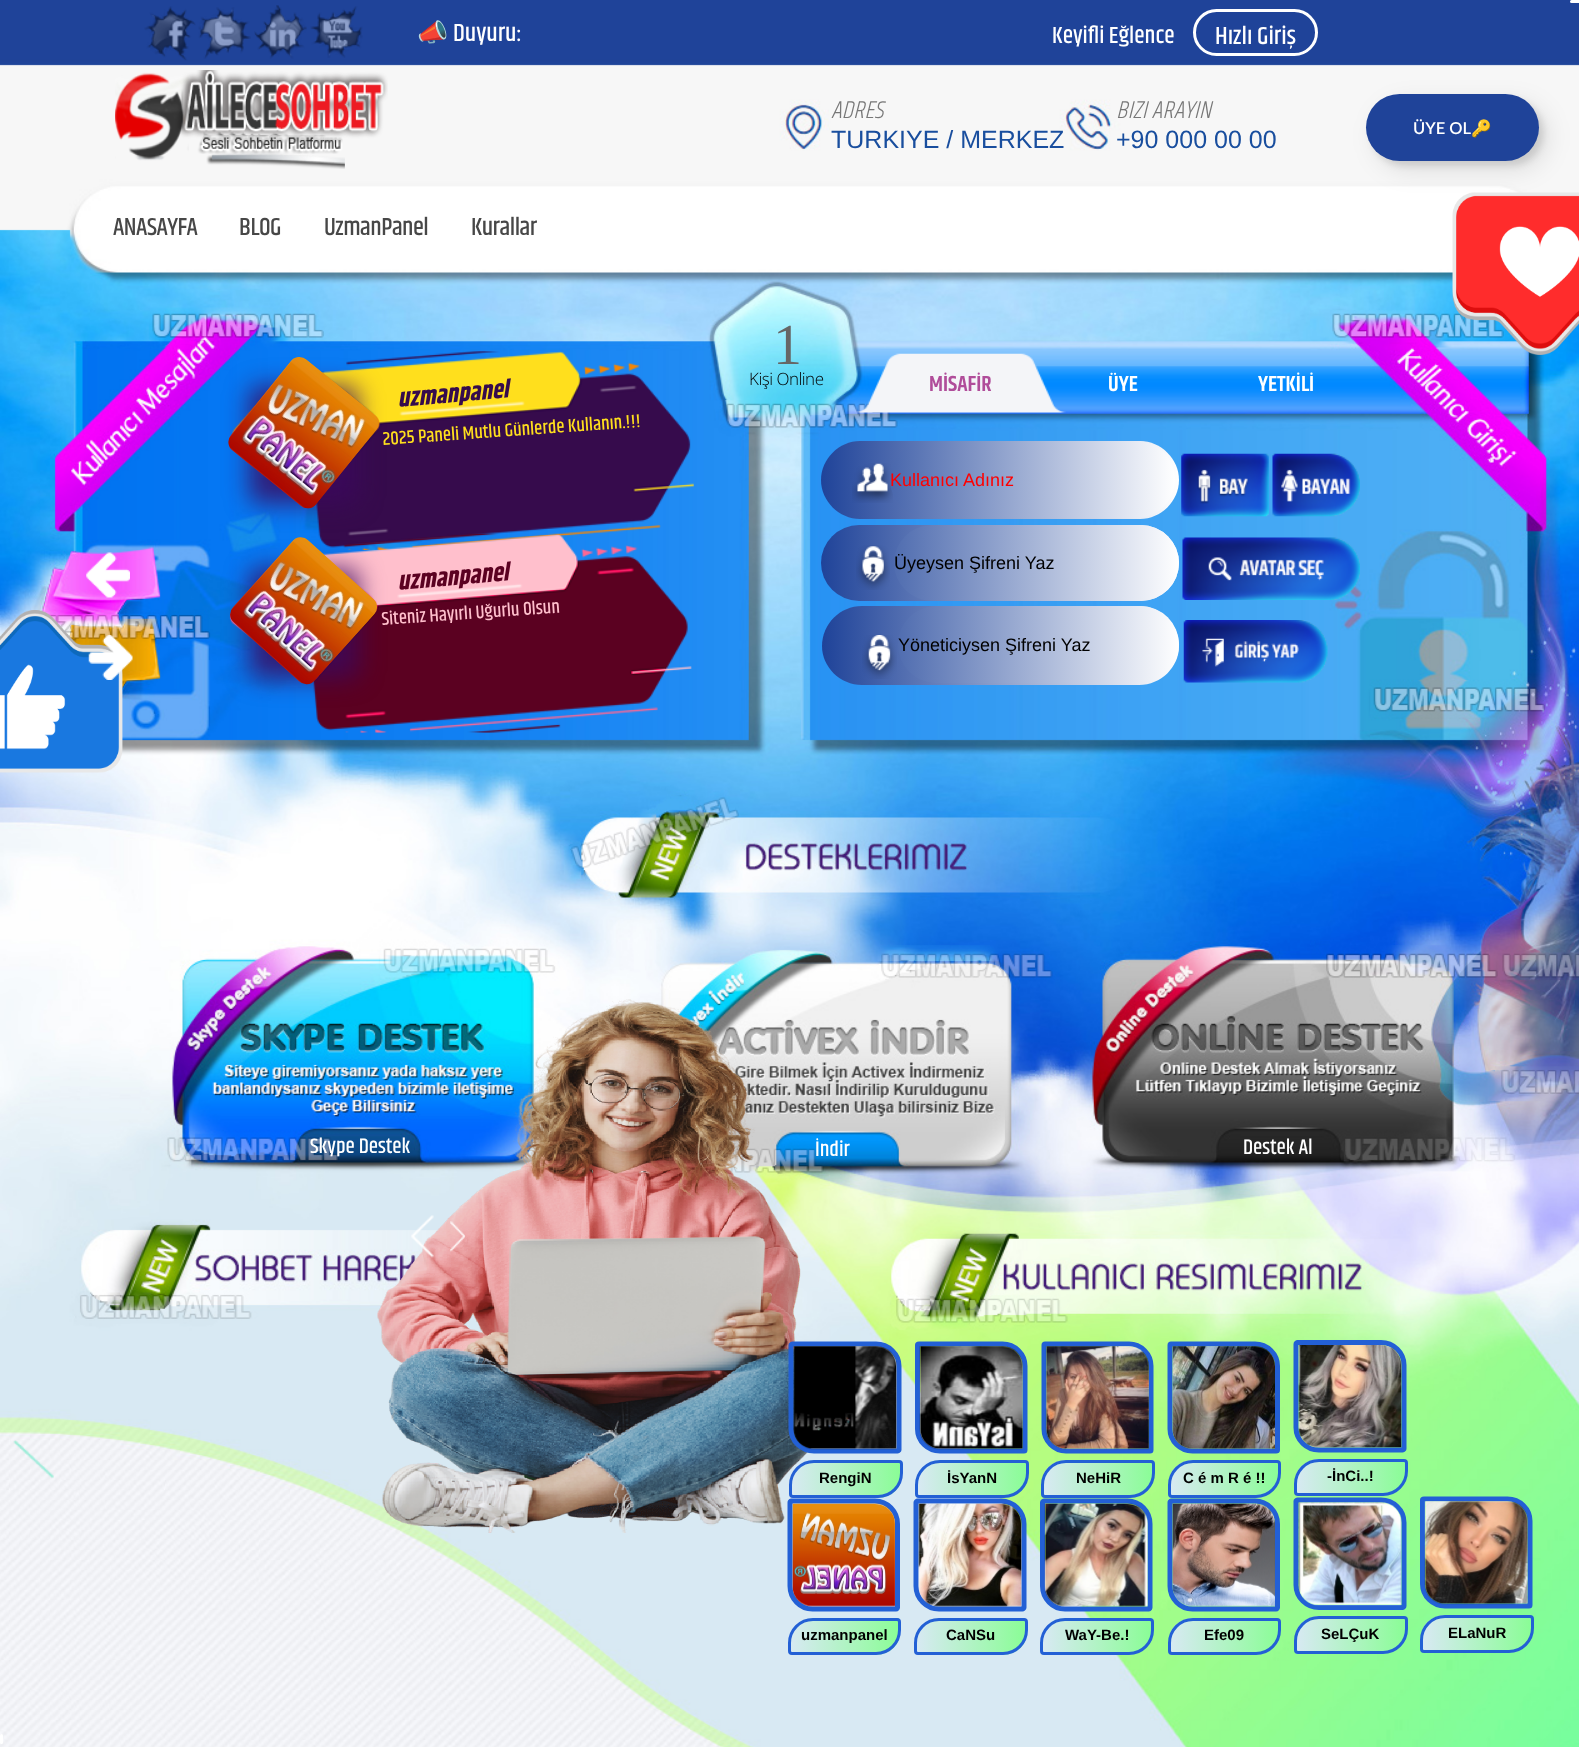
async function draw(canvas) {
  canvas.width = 1579;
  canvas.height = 1747;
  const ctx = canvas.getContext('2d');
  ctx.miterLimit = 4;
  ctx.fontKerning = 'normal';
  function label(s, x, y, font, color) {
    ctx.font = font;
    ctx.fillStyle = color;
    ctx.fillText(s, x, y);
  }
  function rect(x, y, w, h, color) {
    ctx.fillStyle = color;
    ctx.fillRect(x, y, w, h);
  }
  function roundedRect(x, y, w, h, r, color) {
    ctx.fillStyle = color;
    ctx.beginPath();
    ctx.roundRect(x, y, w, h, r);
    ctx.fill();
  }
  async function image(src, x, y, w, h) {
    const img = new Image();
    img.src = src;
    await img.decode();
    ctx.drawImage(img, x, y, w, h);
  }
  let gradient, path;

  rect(0, 0, 1579, 1747, '#fff');
  await image('assets/img1.png', 0, 0, 1579, 1747);
  roundedRect(1570, 0, 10, 3, 1.5, '#fff');
  await image('assets/img2.png', 144, 6, 52, 55);
  await image('assets/img3.png', 198, 7, 53, 52);
  await image('assets/img4.png', 254, 5, 53, 54);
  await image('assets/img5.png', 310, 6, 53, 52);
  label('📣', 417, 41, '25px Noto Color Emoji', '#fff');
  label('Duyuru:', 453, 41, '500 25px Khand', '#fff');
  label('Keyifli Eğlence', 1052, 43, '500 23.75px Khand', '#fff');
  ctx.beginPath();
  ctx.roundRect(1194.5, 10.5, 122, 44, 22);
  ctx.strokeStyle = '#fff';
  ctx.lineWidth = 3;
  ctx.stroke();
  label('Hızlı Giriş', 1215, 44, '500 25px Khand', '#fff');
  await image('assets/img6.png', 115, 70, 273, 99);
  label('ADRES', 831, 118, 'italic 300 25px Khand', '#777');
  label('TURKIYE / MERKEZ', 831, 148, '25px Liberation Sans', '#194e9e');
  label('BIZI ARAYIN', 1116, 118, 'italic 300 25px Khand', '#777');
  label('+90 000 00 00', 1116, 148, '25px Liberation Sans', '#194e9e');
  ctx.fillStyle = '#0000001a';
  ctx.filter = 'blur(3px)';
  ctx.beginPath();
  ctx.roundRect(1371, 99, 173, 67, 33.5);
  ctx.fill();
  ctx.filter = 'none';
  ctx.filter = 'blur(12.5px)';
  ctx.beginPath();
  ctx.roundRect(1375, 103, 173, 67, 33.5);
  ctx.fill();
  ctx.filter = 'none';
  roundedRect(1366, 94, 173, 67, 33.5, '#1f4399');
  label('ÜYE OL', 1413, 134, '600 16.5px Lato', '#fff');
  label('🔑', 1471, 134, 'bold 16.5px Noto Color Emoji', '#fff');
  ctx.letterSpacing = '-0.5px';
  label('ANASAYFA', 113, 235, '500 25px Khand', '#474747');
  label('BLOG', 239, 235, '500 25px Khand', '#474747');
  label('UzmanPanel', 324, 235, '500 25px Khand', '#474747');
  label('Kurallar', 471, 235, '500 25px Khand', '#474747');
  await image('assets/img7.png', 1452, 192, 127, 163);
  await image('assets/img8.png', 86, 552, 44, 46);
  await image('assets/img9.png', 232, 351, 462, 199);
  ctx.fillStyle = '#3b075ccc';
  ctx.filter = 'blur(12.5px)';
  ctx.beginPath();
  ctx.roundRect(249, 386, 109, 118, 11);
  ctx.fill();
  ctx.filter = 'none';
  await image('assets/img10.png', 228, 357, 151, 152);
  ctx.letterSpacing = '0px';
  ctx.font = 'italic bold 25px Khand';
  ctx.fillStyle = '#360b4c';
  ctx.save();
  ctx.translate(398, 407);
  ctx.rotate(-5 * Math.PI / 180);
  ctx.fillText('uzmanpanel', 0, 0);
  ctx.restore();
  ctx.font = '500 18.75px Khand';
  ctx.fillStyle = '#ffdf1d';
  ctx.save();
  ctx.translate(383, 445);
  ctx.rotate(-4 * Math.PI / 180);
  ctx.fillText('2025 Paneli Mutlu Günlerde Kullanın.!!!', 0, 0);
  ctx.restore();
  await image('assets/img11.png', 229, 533, 463, 200);
  ctx.fillStyle = '#3b075ccc';
  ctx.filter = 'blur(12.5px)';
  ctx.beginPath();
  ctx.roundRect(249, 568, 110, 111, 11);
  ctx.fill();
  ctx.filter = 'none';
  await image('assets/img12.png', 230, 537, 147, 148);
  ctx.font = 'italic bold 25px Khand';
  ctx.fillStyle = '#5b0121';
  ctx.save();
  ctx.translate(398, 590);
  ctx.rotate(-5 * Math.PI / 180);
  ctx.fillText('uzmanpanel', 0, 0);
  ctx.restore();
  ctx.font = '500 18.75px Khand';
  ctx.fillStyle = '#ffbfcc';
  ctx.save();
  ctx.translate(382, 625);
  ctx.rotate(-4 * Math.PI / 180);
  ctx.fillText('Siteniz Hayırlı Uğurlu Olsun', 0, 0);
  ctx.restore();
  await image('assets/img22.png', 0, 610, 123, 163);
  await image('assets/img13.png', 88, 635, 45, 45);
  ctx.letterSpacing = '-3px';
  label('1', 773, 364, '58px Liberation Serif', '#666');
  ctx.letterSpacing = '-0.5px';
  label('Kişi Online', 749, 385, '300 17px Open Sans', '#000');
  await image('assets/img14.png', 855, 353, 211, 60);
  ctx.letterSpacing = '0px';
  label('MİSAFİR', 929, 391, '600 22px Khand', '#b04d9a');
  label('ÜYE', 1108, 391, '600 22px Khand', '#fff');
  label('YETKİLİ', 1258, 391, '600 22px Khand', '#fff');
  gradient = ctx.createLinearGradient(1179, 480, 821, 480);
  gradient.addColorStop(0, '#fff');
  gradient.addColorStop(1, '#1f4399');
  ctx.fillStyle = gradient;
  path = new Path2D('M860 519H1140C1161 519 1179 501 1179 480C1179 459 1161 441 1140 441H860C839 441 821 459 821 480C821 501 839 519 860 519Z');
  ctx.fill(path);
  await image('assets/img15.png', 852, 463, 41, 40);
  gradient = ctx.createLinearGradient(1175, 479, 890, 479);
  gradient.addColorStop(0, '#fff');
  gradient.addColorStop(1, '#4967ad');
  ctx.fillStyle = gradient;
  ctx.beginPath();
  ctx.roundRect(890, 441, 285, 77, 38.5);
  ctx.fill();
  label('Kullanıcı Adınız', 890, 486, '18px Liberation Sans', '#f00');
  gradient = ctx.createLinearGradient(1179, 563, 821, 563);
  gradient.addColorStop(0, '#fff');
  gradient.addColorStop(1, '#1f4399');
  ctx.fillStyle = gradient;
  ctx.beginPath();
  ctx.roundRect(821, 525, 358, 76, 38);
  ctx.fill();
  await image('assets/img16.png', 856, 545, 34, 45);
  gradient = ctx.createLinearGradient(1179, 563, 894, 563);
  gradient.addColorStop(0, '#fff');
  gradient.addColorStop(1, '#506db0');
  ctx.fillStyle = gradient;
  ctx.beginPath();
  ctx.roundRect(894, 525, 285, 76, 38);
  ctx.fill();
  label('Üyeysen Şifreni Yaz', 894, 569, '18px Liberation Sans', '#000');
  gradient = ctx.createLinearGradient(1179, 646, 823, 646);
  gradient.addColorStop(0, '#fff');
  gradient.addColorStop(1, '#1f4399');
  ctx.fillStyle = gradient;
  path = new Path2D('M862 685H1139C1161 685 1179 667 1179 646C1179 624 1161 606 1139 606H862C840 606 822 624 822 646C822 667 840 685 862 685Z');
  ctx.fill(path);
  await image('assets/img17.png', 862, 635, 35, 44);
  await image('assets/img18.png', 1183, 620, 145, 63);
  gradient = ctx.createLinearGradient(1179, 644, 898, 644);
  gradient.addColorStop(0, '#fff');
  gradient.addColorStop(1, '#506db0');
  ctx.fillStyle = gradient;
  ctx.beginPath();
  ctx.roundRect(898, 606, 281, 77, 38.5);
  ctx.fill();
  label('Yöneticiysen Şifreni Yaz', 898, 651, '18px Liberation Sans', '#000');
  await image('assets/img19.png', 1181, 453, 88, 64);
  await image('assets/img20.png', 1272, 453, 88, 64);
  await image('assets/img21.png', 1182, 537, 178, 63);
  await image('assets/img23.png', 377, 999, 435, 534);
  label('Skype Destek', 310, 1153, '500 21.25px Khand', '#fff');
  label('İndir', 815, 1156, '500 21.25px Khand', '#fff');
  label('Destek Al', 1243, 1154, '500 21.25px Khand', '#fff');
  await image('assets/img24.png', 411, 1215, 23, 43);
  await image('assets/img25.png', 450, 1221, 15, 31);
  await image('assets/img26.png', 13, 1440, 41, 39);
  path = new Path2D('M876 1344H792.5C792 1344 791 1344.5 791 1345V1429C791 1441 801.5 1451 814 1451H897.5C898 1451 899 1450.5 899 1450V1366C899 1354 888.5 1344 876 1344Z');
  ctx.strokeStyle = '#2360d5';
  ctx.lineWidth = 5;
  ctx.stroke(path);
  await image('assets/img27.png', 793, 1346, 104, 104);
  ctx.save();
  ctx.beginPath();
  ctx.roundRect(789, 1460, 114, 38, [25, 4, 25, 4]);
  ctx.clip();
  gradient = ctx.createLinearGradient(900, 1479, 791, 1479);
  gradient.addColorStop(0, '#8afd96');
  gradient.addColorStop(1, '#d8e9f3');
  ctx.fillStyle = gradient;
  ctx.fillRect(791, 1460, 109, 38);
  ctx.restore();
  ctx.beginPath();
  ctx.roundRect(790.5, 1461.5, 111, 35, [23.5, 2.5, 23.5, 2.5]);
  ctx.lineWidth = 3;
  ctx.stroke();
  label('RengiN', 819, 1483, 'bold 15px Liberation Sans', '#000');
  path = new Path2D('M1002.5 1344H919C918 1344 917.5 1344.5 917.5 1345V1429C917.5 1441 927.5 1451 940 1451H1024C1024.5 1451 1025 1450.5 1025 1450V1366C1025 1354 1015 1344 1002.5 1344Z');
  ctx.lineWidth = 5;
  ctx.stroke(path);
  await image('assets/img28.png', 919, 1346, 104, 104);
  ctx.save();
  ctx.beginPath();
  ctx.roundRect(915, 1460, 114, 38, [25, 4, 25, 4]);
  ctx.clip();
  gradient = ctx.createLinearGradient(1026, 1479, 918, 1479);
  gradient.addColorStop(0, '#8afd96');
  gradient.addColorStop(1, '#d8e9f3');
  ctx.fillStyle = gradient;
  ctx.fillRect(918, 1460, 108, 38);
  ctx.restore();
  ctx.beginPath();
  ctx.roundRect(916.5, 1461.5, 111, 35, [23.5, 2.5, 23.5, 2.5]);
  ctx.lineWidth = 3;
  ctx.stroke();
  label('İsYanN', 947, 1483, 'bold 15px Liberation Sans', '#000');
  path = new Path2D('M1129 1344H1045C1044.5 1344 1044 1344.5 1044 1345V1429C1044 1441 1054 1451 1066 1451H1150C1150.5 1451 1151 1450.5 1151 1450V1366C1151 1354 1141 1344 1129 1344Z');
  ctx.lineWidth = 5;
  ctx.stroke(path);
  await image('assets/img29.png', 1045, 1346, 104, 104);
  ctx.save();
  ctx.beginPath();
  ctx.roundRect(1041, 1460, 114, 38, [25, 4, 25, 4]);
  ctx.clip();
  gradient = ctx.createLinearGradient(1153, 1479, 1044, 1479);
  gradient.addColorStop(0, '#8afd96');
  gradient.addColorStop(1, '#d8e9f3');
  ctx.fillStyle = gradient;
  ctx.fillRect(1044, 1460, 109, 38);
  ctx.restore();
  ctx.beginPath();
  ctx.roundRect(1042.5, 1461.5, 111, 35, [23.5, 2.5, 23.5, 2.5]);
  ctx.lineWidth = 3;
  ctx.stroke();
  label('NeHiR', 1076, 1483, 'bold 15px Liberation Sans', '#000');
  path = new Path2D('M1255 1344H1171C1170.5 1344 1170 1344.5 1170 1345V1429C1170 1441 1180 1451 1192.5 1451H1276C1277 1451 1277.5 1450.5 1277.5 1450V1366C1277.5 1354 1267.5 1344 1255 1344Z');
  ctx.lineWidth = 5;
  ctx.stroke(path);
  await image('assets/img30.png', 1172, 1346, 103, 104);
  ctx.save();
  ctx.beginPath();
  ctx.roundRect(1168, 1460, 113, 38, [25, 4, 25, 4]);
  ctx.clip();
  gradient = ctx.createLinearGradient(1279, 1479, 1170, 1479);
  gradient.addColorStop(0, '#8afd96');
  gradient.addColorStop(1, '#d8e9f3');
  ctx.fillStyle = gradient;
  ctx.fillRect(1170, 1460, 109, 38);
  ctx.restore();
  ctx.beginPath();
  ctx.roundRect(1169.5, 1461.5, 110, 35, [23.5, 2.5, 23.5, 2.5]);
  ctx.lineWidth = 3;
  ctx.stroke();
  label('C é m R é !!', 1183, 1483, 'bold 15px Liberation Sans', '#000');
  path = new Path2D('M1381 1342.5H1297.5C1297 1342.5 1296 1343 1296 1344V1427.5C1296 1440 1306.5 1450 1319 1450H1402.5C1403 1450 1404 1449.5 1404 1449V1365C1404 1352.5 1393.5 1342.5 1381 1342.5Z');
  ctx.lineWidth = 5;
  ctx.stroke(path);
  await image('assets/img31.png', 1298, 1345, 104, 103);
  ctx.save();
  ctx.beginPath();
  ctx.roundRect(1294, 1459, 114, 37, [25, 4, 25, 4]);
  ctx.clip();
  gradient = ctx.createLinearGradient(1405, 1478, 1296, 1478);
  gradient.addColorStop(0, '#8afd96');
  gradient.addColorStop(1, '#d8e9f3');
  ctx.fillStyle = gradient;
  ctx.fillRect(1296, 1459, 109, 37);
  ctx.restore();
  ctx.beginPath();
  ctx.roundRect(1295.5, 1460.5, 111, 34, [23.5, 2.5, 23.5, 2.5]);
  ctx.lineWidth = 3;
  ctx.stroke();
  label('-İnCi..!', 1327, 1481, 'bold 15px Liberation Sans', '#000');
  path = new Path2D('M875 1501H791C790.5 1501 790 1502 790 1502.5V1586C790 1598.5 800 1609 812.5 1609H896C897 1609 897.5 1608 897.5 1607.5V1524C897.5 1511.5 887.5 1501 875 1501Z');
  ctx.lineWidth = 5;
  ctx.stroke(path);
  await image('assets/img32.png', 792, 1503, 103, 104);
  ctx.save();
  ctx.beginPath();
  ctx.roundRect(788, 1618, 113, 37, [25, 4, 25, 4]);
  ctx.clip();
  gradient = ctx.createLinearGradient(899, 1636, 790, 1636);
  gradient.addColorStop(0, '#8afd96');
  gradient.addColorStop(1, '#d8e9f3');
  ctx.fillStyle = gradient;
  ctx.fillRect(790, 1618, 109, 37);
  ctx.restore();
  ctx.beginPath();
  ctx.roundRect(789.5, 1619.5, 110, 34, [23.5, 2.5, 23.5, 2.5]);
  ctx.lineWidth = 3;
  ctx.stroke();
  label('uzmanpanel', 801, 1640, 'bold 15px Liberation Sans', '#000');
  path = new Path2D('M1001 1501H917.5C917 1501 916 1502 916 1502.5V1586C916 1598.5 926.5 1609 939 1609H1022.5C1023 1609 1024 1608 1024 1607.5V1524C1024 1511.5 1013.5 1501 1001 1501Z');
  ctx.lineWidth = 5;
  ctx.stroke(path);
  await image('assets/img33.png', 918, 1503, 104, 104);
  ctx.save();
  ctx.beginPath();
  ctx.roundRect(914, 1618, 114, 37, [25, 4, 25, 4]);
  ctx.clip();
  gradient = ctx.createLinearGradient(1025, 1636, 916, 1636);
  gradient.addColorStop(0, '#8afd96');
  gradient.addColorStop(1, '#d8e9f3');
  ctx.fillStyle = gradient;
  ctx.fillRect(916, 1618, 109, 37);
  ctx.restore();
  ctx.beginPath();
  ctx.roundRect(915.5, 1619.5, 111, 34, [23.5, 2.5, 23.5, 2.5]);
  ctx.lineWidth = 3;
  ctx.stroke();
  label('CaNSu', 946, 1640, 'bold 15px Liberation Sans', '#000');
  path = new Path2D('M1127.5 1501H1044C1043 1501 1042.5 1502 1042.5 1502.5V1586C1042.5 1598.5 1052.5 1609 1065 1609H1149C1149.5 1609 1150 1608 1150 1607.5V1524C1150 1511.5 1140 1501 1127.5 1501Z');
  ctx.lineWidth = 5;
  ctx.stroke(path);
  await image('assets/img34.png', 1044, 1503, 104, 104);
  ctx.save();
  ctx.beginPath();
  ctx.roundRect(1040, 1618, 114, 37, [25, 4, 25, 4]);
  ctx.clip();
  gradient = ctx.createLinearGradient(1151, 1636, 1043, 1636);
  gradient.addColorStop(0, '#8afd96');
  gradient.addColorStop(1, '#d8e9f3');
  ctx.fillStyle = gradient;
  ctx.fillRect(1043, 1618, 108, 37);
  ctx.restore();
  ctx.beginPath();
  ctx.roundRect(1041.5, 1619.5, 111, 34, [23.5, 2.5, 23.5, 2.5]);
  ctx.lineWidth = 3;
  ctx.stroke();
  label('WaY-Be.!', 1065, 1640, 'bold 15px Liberation Sans', '#000');
  path = new Path2D('M1255 1501H1171C1170.5 1501 1170 1502 1170 1502.5V1586C1170 1598.5 1180 1609 1192.5 1609H1276C1277 1609 1277.5 1608 1277.5 1607.5V1524C1277.5 1511.5 1267.5 1501 1255 1501Z');
  ctx.lineWidth = 5;
  ctx.stroke(path);
  await image('assets/img35.png', 1172, 1503, 103, 104);
  ctx.save();
  ctx.beginPath();
  ctx.roundRect(1168, 1618, 113, 37, [25, 4, 25, 4]);
  ctx.clip();
  gradient = ctx.createLinearGradient(1279, 1636, 1170, 1636);
  gradient.addColorStop(0, '#8afd96');
  gradient.addColorStop(1, '#d8e9f3');
  ctx.fillStyle = gradient;
  ctx.fillRect(1170, 1618, 109, 37);
  ctx.restore();
  ctx.beginPath();
  ctx.roundRect(1169.5, 1619.5, 110, 34, [23.5, 2.5, 23.5, 2.5]);
  ctx.lineWidth = 3;
  ctx.stroke();
  label('Efe09', 1204, 1640, 'bold 15px Liberation Sans', '#000');
  path = new Path2D('M1381 1500H1297.5C1297 1500 1296 1500.5 1296 1501V1585C1296 1597.5 1306.5 1607.5 1319 1607.5H1402.5C1403 1607.5 1404 1607 1404 1606V1522.5C1404 1510 1393.5 1500 1381 1500Z');
  ctx.lineWidth = 5;
  ctx.stroke(path);
  await image('assets/img36.png', 1298, 1502, 104, 104);
  ctx.save();
  ctx.beginPath();
  ctx.roundRect(1294, 1616, 114, 38, [25, 4, 25, 4]);
  ctx.clip();
  gradient = ctx.createLinearGradient(1405, 1635, 1296, 1635);
  gradient.addColorStop(0, '#8afd96');
  gradient.addColorStop(1, '#d8e9f3');
  ctx.fillStyle = gradient;
  ctx.fillRect(1296, 1616, 109, 38);
  ctx.restore();
  ctx.beginPath();
  ctx.roundRect(1295.5, 1617.5, 111, 35, [23.5, 2.5, 23.5, 2.5]);
  ctx.lineWidth = 3;
  ctx.stroke();
  label('SeLÇuK', 1321, 1639, 'bold 15px Liberation Sans', '#000');
  path = new Path2D('M1507.5 1499H1424C1423 1499 1422.5 1499.5 1422.5 1500V1584C1422.5 1596 1432.5 1606 1445 1606H1529C1529.5 1606 1530 1605.5 1530 1605V1521C1530 1509 1520 1499 1507.5 1499Z');
  ctx.lineWidth = 5;
  ctx.stroke(path);
  await image('assets/img37.png', 1424, 1501, 104, 104);
  ctx.save();
  ctx.beginPath();
  ctx.roundRect(1420, 1615, 114, 38, [25, 4, 25, 4]);
  ctx.clip();
  gradient = ctx.createLinearGradient(1531, 1634, 1423, 1634);
  gradient.addColorStop(0, '#8afd96');
  gradient.addColorStop(1, '#d8e9f3');
  ctx.fillStyle = gradient;
  ctx.fillRect(1423, 1615, 108, 38);
  ctx.restore();
  ctx.beginPath();
  ctx.roundRect(1421.5, 1616.5, 111, 35, [23.5, 2.5, 23.5, 2.5]);
  ctx.lineWidth = 3;
  ctx.stroke();
  label('ELaNuR', 1448, 1638, 'bold 15px Liberation Sans', '#000');
  roundedRect(0, 1734, 3, 10, 1.5, '#fff');
}

draw(document.querySelector('canvas'));
